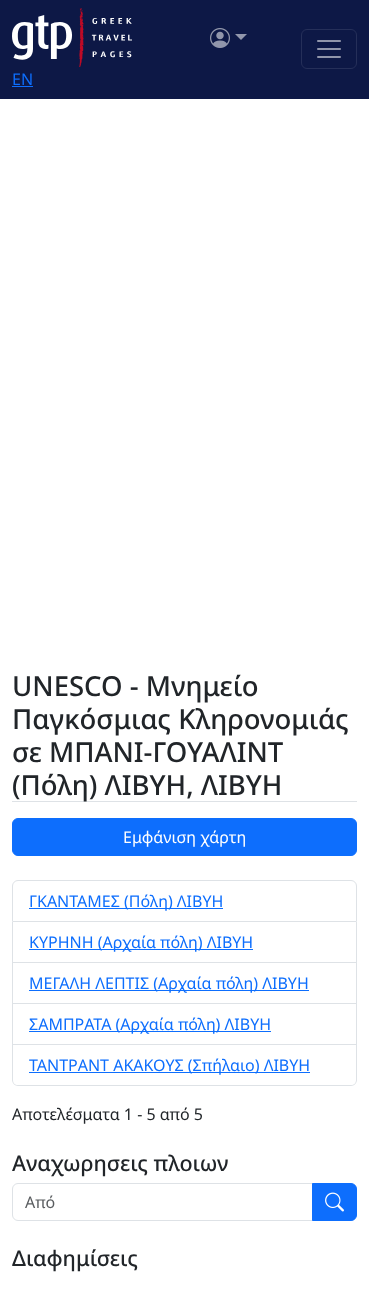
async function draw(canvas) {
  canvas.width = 369;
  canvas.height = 1314;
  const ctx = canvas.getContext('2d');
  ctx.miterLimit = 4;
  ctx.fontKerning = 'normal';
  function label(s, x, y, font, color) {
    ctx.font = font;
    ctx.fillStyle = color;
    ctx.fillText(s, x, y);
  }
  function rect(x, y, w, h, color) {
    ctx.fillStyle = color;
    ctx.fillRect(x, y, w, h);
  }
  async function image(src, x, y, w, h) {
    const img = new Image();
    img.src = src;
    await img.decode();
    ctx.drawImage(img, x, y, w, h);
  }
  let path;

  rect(0, 0, 369, 1314, '#fff');
  rect(0, 0, 369, 99, '#0d1846');
  await image('assets/img1.png', 210, 28, 20, 20);
  ctx.fillStyle = '#9297ac';
  path = new Path2D('M235 34H247L241 40Z');
  ctx.fill(path);
  ctx.beginPath();
  ctx.roundRect(301.5, 29.5, 55, 39, 5.5);
  ctx.strokeStyle = '#252f59';
  ctx.stroke();
  await image('assets/img2.png', 317, 40, 24, 18);
  await image('assets/img3.png', 12, 8, 120, 59);
  label('EN', 12, 85, '16px Noto Sans', '#0d6efd');
  rect(12, 86, 21, 1, '#0d6efd');
  rect(12, 801, 345, 1, '#dee2e6');
  label('UNESCO - Μνημείο', 12, 696, '500 27.5px Noto Sans', '#212529');
  label('Παγκόσμιας Κληρονομιάς', 12, 729, '500 27.5px Noto Sans', '#212529');
  label('σε ΜΠΑΝΙ-ΓΟΥΑΛΙΝΤ', 12, 762, '500 27.5px Noto Sans', '#212529');
  label('(Πόλη) ΛΙΒΥΗ, ΛΙΒΥΗ', 12, 795, '500 27.5px Noto Sans', '#212529');
  ctx.fillStyle = '#0d6efd';
  ctx.beginPath();
  ctx.roundRect(12.5, 818.5, 344, 37, 5.5);
  ctx.fill();
  ctx.strokeStyle = '#0d6efd';
  ctx.stroke();
  label('Εμφάνιση χάρτη', 123, 843, '16px Noto Sans', '#fff');
  ctx.beginPath();
  ctx.roundRect(12.5, 880.5, 344, 41, [5.5, 5.5, 0, 0]);
  ctx.strokeStyle = '#dee2e6';
  ctx.stroke();
  rect(29, 908, 194, 1, '#0d6efd');
  label('ΓΚΑΝΤΑΜΕΣ (Πόλη) ΛΙΒΥΗ', 29, 907, '16px Noto Sans', '#0d6efd');
  rect(356, 922, 1, 123, '#dee2e6');
  rect(12, 962, 345, 1, '#dee2e6');
  rect(12, 922, 1, 41, '#dee2e6');
  rect(29, 949, 224, 1, '#0d6efd');
  label('ΚΥΡΗΝΗ (Αρχαία πόλη) ΛΙΒΥΗ', 29, 948, '16px Noto Sans', '#0d6efd');
  rect(12, 1003, 345, 1, '#dee2e6');
  rect(12, 963, 1, 41, '#dee2e6');
  rect(29, 990, 280, 1, '#0d6efd');
  label('ΜΕΓΑΛΗ ΛΕΠΤΙΣ (Αρχαία πόλη) ΛΙΒΥΗ', 29, 989, '16px Noto Sans', '#0d6efd');
  rect(12, 1044, 345, 1, '#dee2e6');
  rect(12, 1004, 1, 41, '#dee2e6');
  rect(29, 1031, 242, 1, '#0d6efd');
  label('ΣΑΜΠΡΑΤΑ (Αρχαία πόλη) ΛΙΒΥΗ', 29, 1030, '16px Noto Sans', '#0d6efd');
  ctx.fillStyle = '#dee2e6';
  path = new Path2D('M12 1045H357V1080C357 1083 354 1086 351 1086H18C15 1086 12 1083 12 1080ZM13 1045H356V1080C356 1083 354 1085 351 1085H18C15 1085 13 1083 13 1080Z');
  ctx.fill(path, 'evenodd');
  rect(29, 1072, 281, 1, '#0d6efd');
  label('ΤΑΝΤΡΑΝΤ ΑΚΑΚΟΥΣ (Σπήλαιο) ΛΙΒΥΗ', 29, 1071, '16px Noto Sans', '#0d6efd');
  label('Αποτελέσματα 1 - 5 από 5', 12, 1120, '16px Noto Sans', '#212529');
  label('Αναχωρησεις πλοιων', 12, 1171, '500 21.5px Noto Sans', '#212529');
  ctx.beginPath();
  ctx.roundRect(12.5, 1183.5, 300, 37, [5.5, 0, 0, 5.5]);
  ctx.stroke();
  label('Από', 25, 1208, '16px Noto Sans', '#595c5f');
  ctx.fillStyle = '#0d6efd';
  ctx.beginPath();
  ctx.roundRect(312.5, 1183.5, 44, 37, [0, 5.5, 5.5, 0]);
  ctx.fill();
  ctx.strokeStyle = '#0d6efd';
  ctx.stroke();
  await image('assets/img4.png', 325, 1192, 19, 20);
  label('Διαφημίσεις', 12, 1266, '500 21.5px Noto Sans', '#212529');
}

draw(document.querySelector('canvas'));
